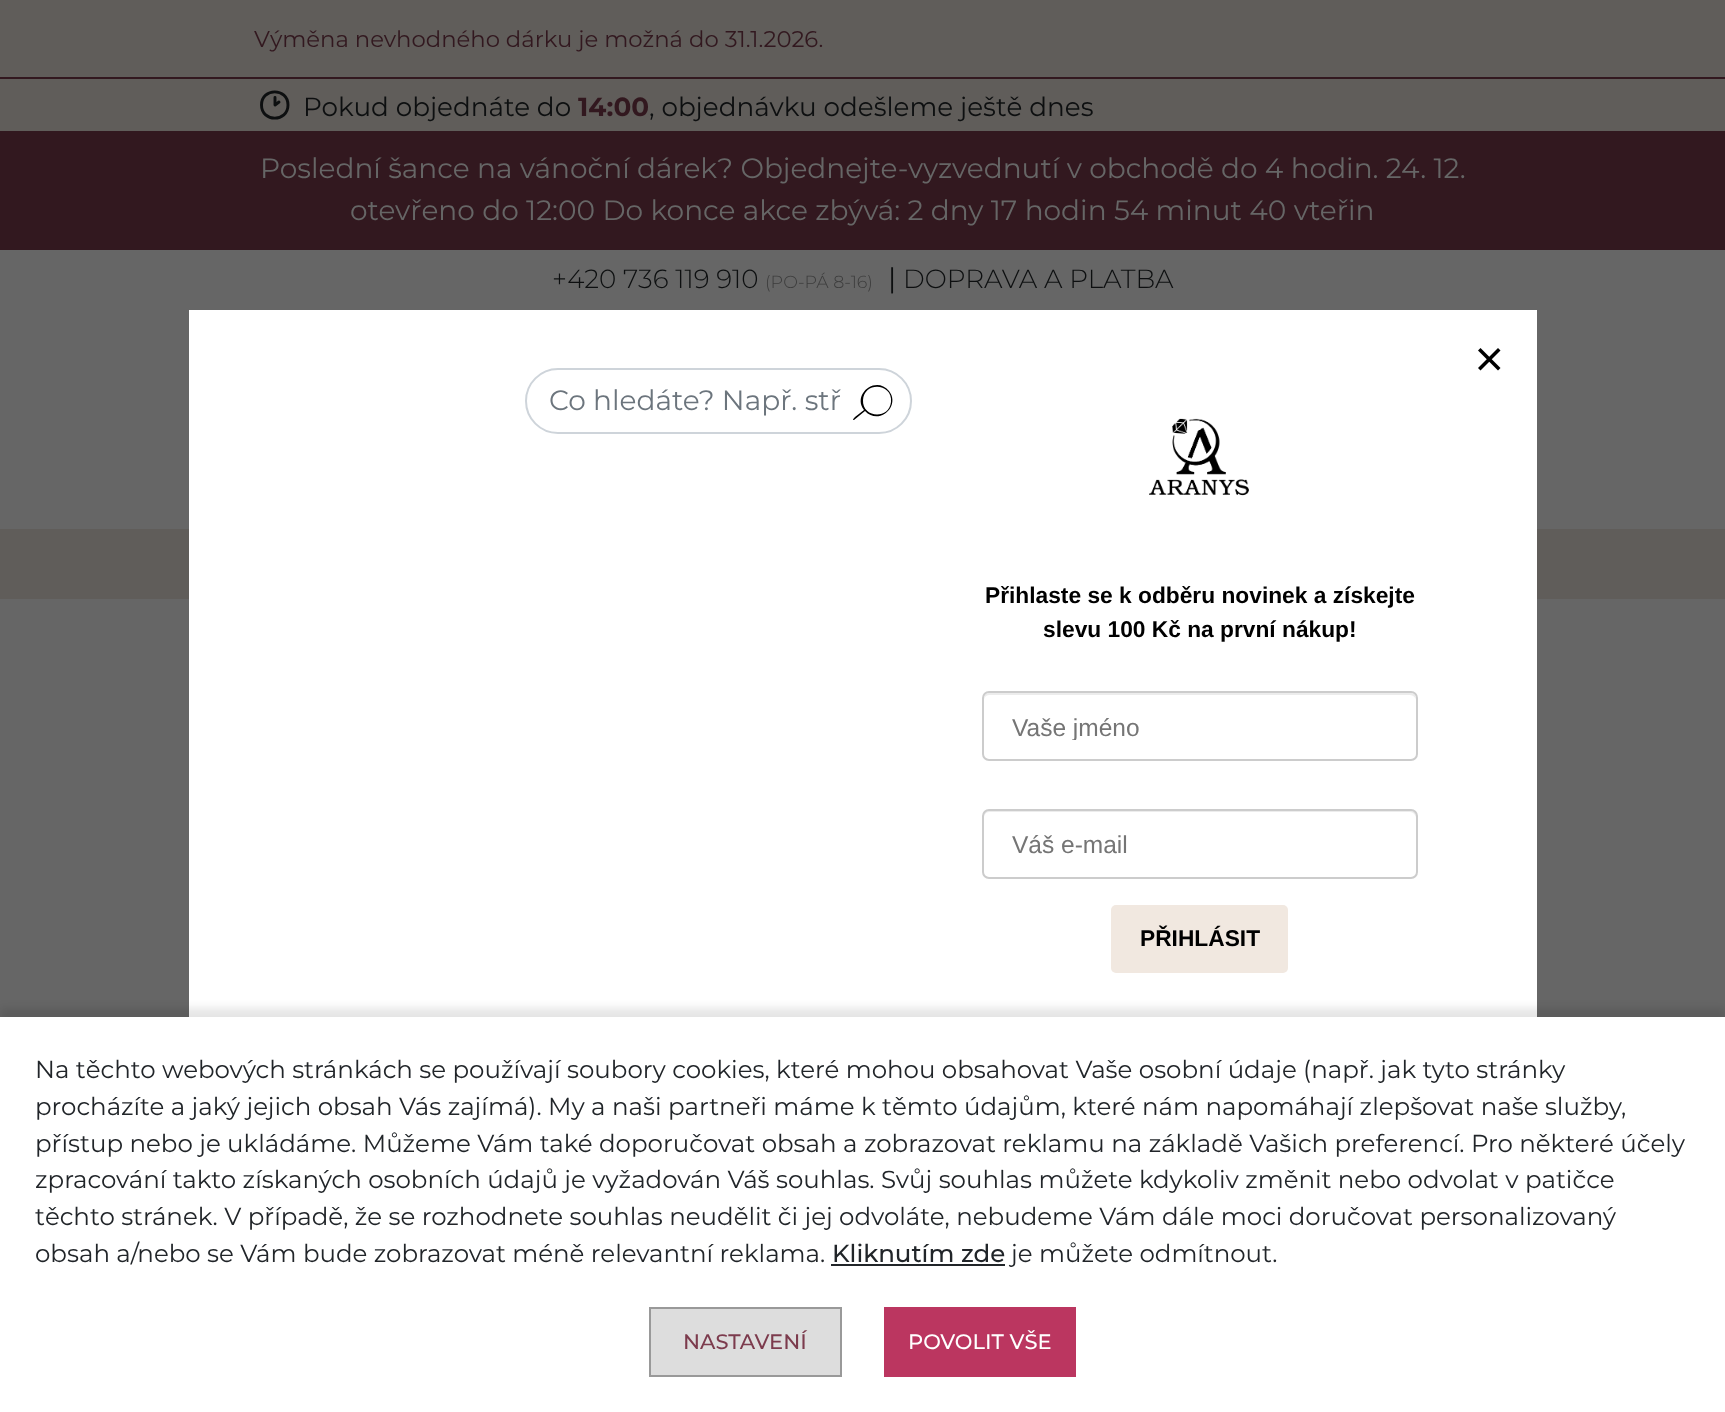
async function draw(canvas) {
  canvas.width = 1725;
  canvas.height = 1412;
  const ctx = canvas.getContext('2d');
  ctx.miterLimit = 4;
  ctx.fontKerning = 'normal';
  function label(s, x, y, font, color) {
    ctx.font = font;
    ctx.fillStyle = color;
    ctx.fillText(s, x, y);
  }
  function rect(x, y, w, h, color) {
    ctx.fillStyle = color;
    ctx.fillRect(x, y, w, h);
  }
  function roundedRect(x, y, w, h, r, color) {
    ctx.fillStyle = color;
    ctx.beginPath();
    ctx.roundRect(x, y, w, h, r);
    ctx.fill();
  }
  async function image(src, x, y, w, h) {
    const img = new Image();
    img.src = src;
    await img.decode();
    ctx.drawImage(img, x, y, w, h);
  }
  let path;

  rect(0, 0, 1725, 1412, '#666');
  rect(0, 0, 1725, 77, '#605d5a');
  rect(0, 77, 1725, 2, '#32181f');
  label('Výměna nevhodného dárku je možná do 31.1.2026.', 254, 47, '22.75px Montserrat', '#32181f');
  rect(0, 79, 1725, 52, '#605d5a');
  path = new Path2D('M261.5 105C261.5 122.5 288 122.5 288 105C288 87.5 261.5 87.5 261.5 105M275 105L279 102M275 97.5V105');
  ctx.strokeStyle = '#0d0f10';
  ctx.lineWidth = 2.9;
  ctx.lineCap = 'round';
  ctx.lineJoin = 'round';
  ctx.stroke(path);
  label('Pokud objednáte do', 303, 116, '26.25px Montserrat', '#0d0f10');
  label('14:00', 578, 116, 'bold 26.25px Montserrat', '#32181f');
  label(', objednávku odešleme ještě dnes', 649, 116, '26.25px Montserrat', '#0d0f10');
  rect(0, 131, 1725, 119, '#32181f');
  label('Poslední šance na vánoční dárek? Objednejte-vyzvednutí v obchodě do 4 hodin. 24. 12.', 260, 178, '28px Montserrat', '#666');
  label('otevřeno do 12:00 Do konce akce zbývá: 2 dny 17 hodin 54 minut 40 vteřin', 350, 220, '28px Montserrat', '#666');
  label('+420 736 119 910', 552, 288, '300 26.25px Montserrat', '#0d0f10');
  label('(PO-PÁ 8-16)', 765, 288, '300 17.5px Montserrat', '#3c3c3c');
  label('|', 888, 288, '28px Montserrat', '#0d0f10');
  label('DOPRAVA A PLATBA', 903, 288, '300 26.25px Montserrat', '#0d0f10');
  rect(0, 529, 1725, 70, '#605d5a');
  rect(189, 310, 1348, 707, '#fff');
  ctx.beginPath();
  ctx.roundRect(526, 369, 385, 64, 32);
  ctx.strokeStyle = '#ced4da';
  ctx.lineWidth = 2;
  ctx.lineJoin = 'miter';
  ctx.stroke();
  label('Co hledáte? Např. stř', 549, 410, '28px Montserrat', '#6c757d');
  ctx.fillStyle = '#000';
  path = new Path2D('M889 391C876 375 852 394 864 410L855 417C854 418 852 420 854 420L865 411C879 426 901 406 889 391ZM891 402C889 420 862 418 863 400C864 381 893 383 891 402Z');
  ctx.fill(path);
  path = new Path2D('M1498 348L1500.5 350.5L1480.5 370.5L1478 368Z');
  ctx.fill(path);
  path = new Path2D('M1478 350.5L1480.5 348L1500.5 368L1498 370.5Z');
  ctx.fill(path);
  await image('assets/img1.png', 1149, 418, 100, 78);
  label('Přihlaste se k odběru novinek a získejte', 985, 603, 'bold 22.75px Liberation Sans', '#000');
  label('slevu 100 Kč na první nákup!', 1043, 637, 'bold 22.75px Liberation Sans', '#000');
  ctx.fillStyle = '#ececec';
  path = new Path2D('M989 695H1410C1413 695 1416 698 1416 700C1416 697 1415 693 1411 693H989C985 693 984 697 984 700C984 698 986 695 989 695Z');
  ctx.fill(path);
  ctx.beginPath();
  ctx.roundRect(983, 692, 434, 68, 6);
  ctx.strokeStyle = '#ccc';
  ctx.stroke();
  ctx.save();
  ctx.beginPath();
  ctx.rect(1012, 712, 376, 28);
  ctx.clip();
  label('Vaše jméno', 1012, 736, '24.5px Liberation Sans', '#757575');
  ctx.restore();
  path = new Path2D('M989 812H1410C1413 812 1416 815 1416 818V815C1416 812 1414 810 1411 810H989C986 810 984 812 984 815V818C984 815 986 812 989 812Z');
  ctx.fill(path);
  ctx.beginPath();
  ctx.roundRect(983, 810, 434, 68, 6);
  ctx.stroke();
  label('Váš e-mail', 1012, 853, '24.5px Liberation Sans', '#757575');
  roundedRect(1111, 905, 177, 68, 5, '#f1e8e0');
  label('PŘIHLÁSIT', 1140, 946, 'bold 22.75px Liberation Sans', '#000');
  ctx.fillStyle = '#0000001a';
  ctx.filter = 'blur(4.5px)';
  ctx.beginPath();
  ctx.rect(0, 1008, 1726, 396);
  ctx.fill();
  ctx.filter = 'none';
  rect(0, 1017, 1725, 395, '#fff');
  label('Na těchto webových stránkách se používají soubory cookies, které mohou obsahovat Vaše osobní údaje (např. jak tyto stránky', 35, 1078, '24.5px Montserrat', '#212529');
  label('procházíte a jaký jejich obsah Vás zajímá). My a naši partneři máme k těmto údajům, které nám napomáhají zlepšovat naše služby,', 35, 1115, '24.5px Montserrat', '#212529');
  label('přístup nebo je ukládáme. Můžeme Vám také doporučovat obsah a zobrazovat reklamu na základě Vašich preferencí. Pro některé účely', 35, 1152, '24.5px Montserrat', '#212529');
  label('zpracování takto získaných osobních údajů je vyžadován Váš souhlas. Svůj souhlas můžete kdykoliv změnit nebo odvolat v patičce', 35, 1188, '24.5px Montserrat', '#212529');
  label('těchto stránek. V případě, že se rozhodnete souhlas neudělit či jej odvoláte, nebudeme Vám dále moci doručovat personalizovaný', 35, 1225, '24.5px Montserrat', '#212529');
  label('obsah a/nebo se Vám bude zobrazovat méně relevantní reklama.', 35, 1262, '24.5px Montserrat', '#212529');
  label('Kliknutím zde', 832, 1262, '500 24.5px Montserrat', '#212529');
  rect(831, 1264, 174, 2, '#212529');
  label('je můžete odmítnout.', 1011, 1262, '24.5px Montserrat', '#212529');
  ctx.fillStyle = '#ddd';
  ctx.beginPath();
  ctx.rect(650, 1308, 191, 68);
  ctx.fill();
  ctx.strokeStyle = '#999';
  ctx.stroke();
  label('NASTAVENÍ', 683, 1349, '500 21px Montserrat', '#7c3b4d');
  rect(884, 1307, 192, 70, '#bb3660');
  label('POVOLIT VŠE', 908, 1349, '500 21px Montserrat', '#fff');
}

draw(document.querySelector('canvas'));
